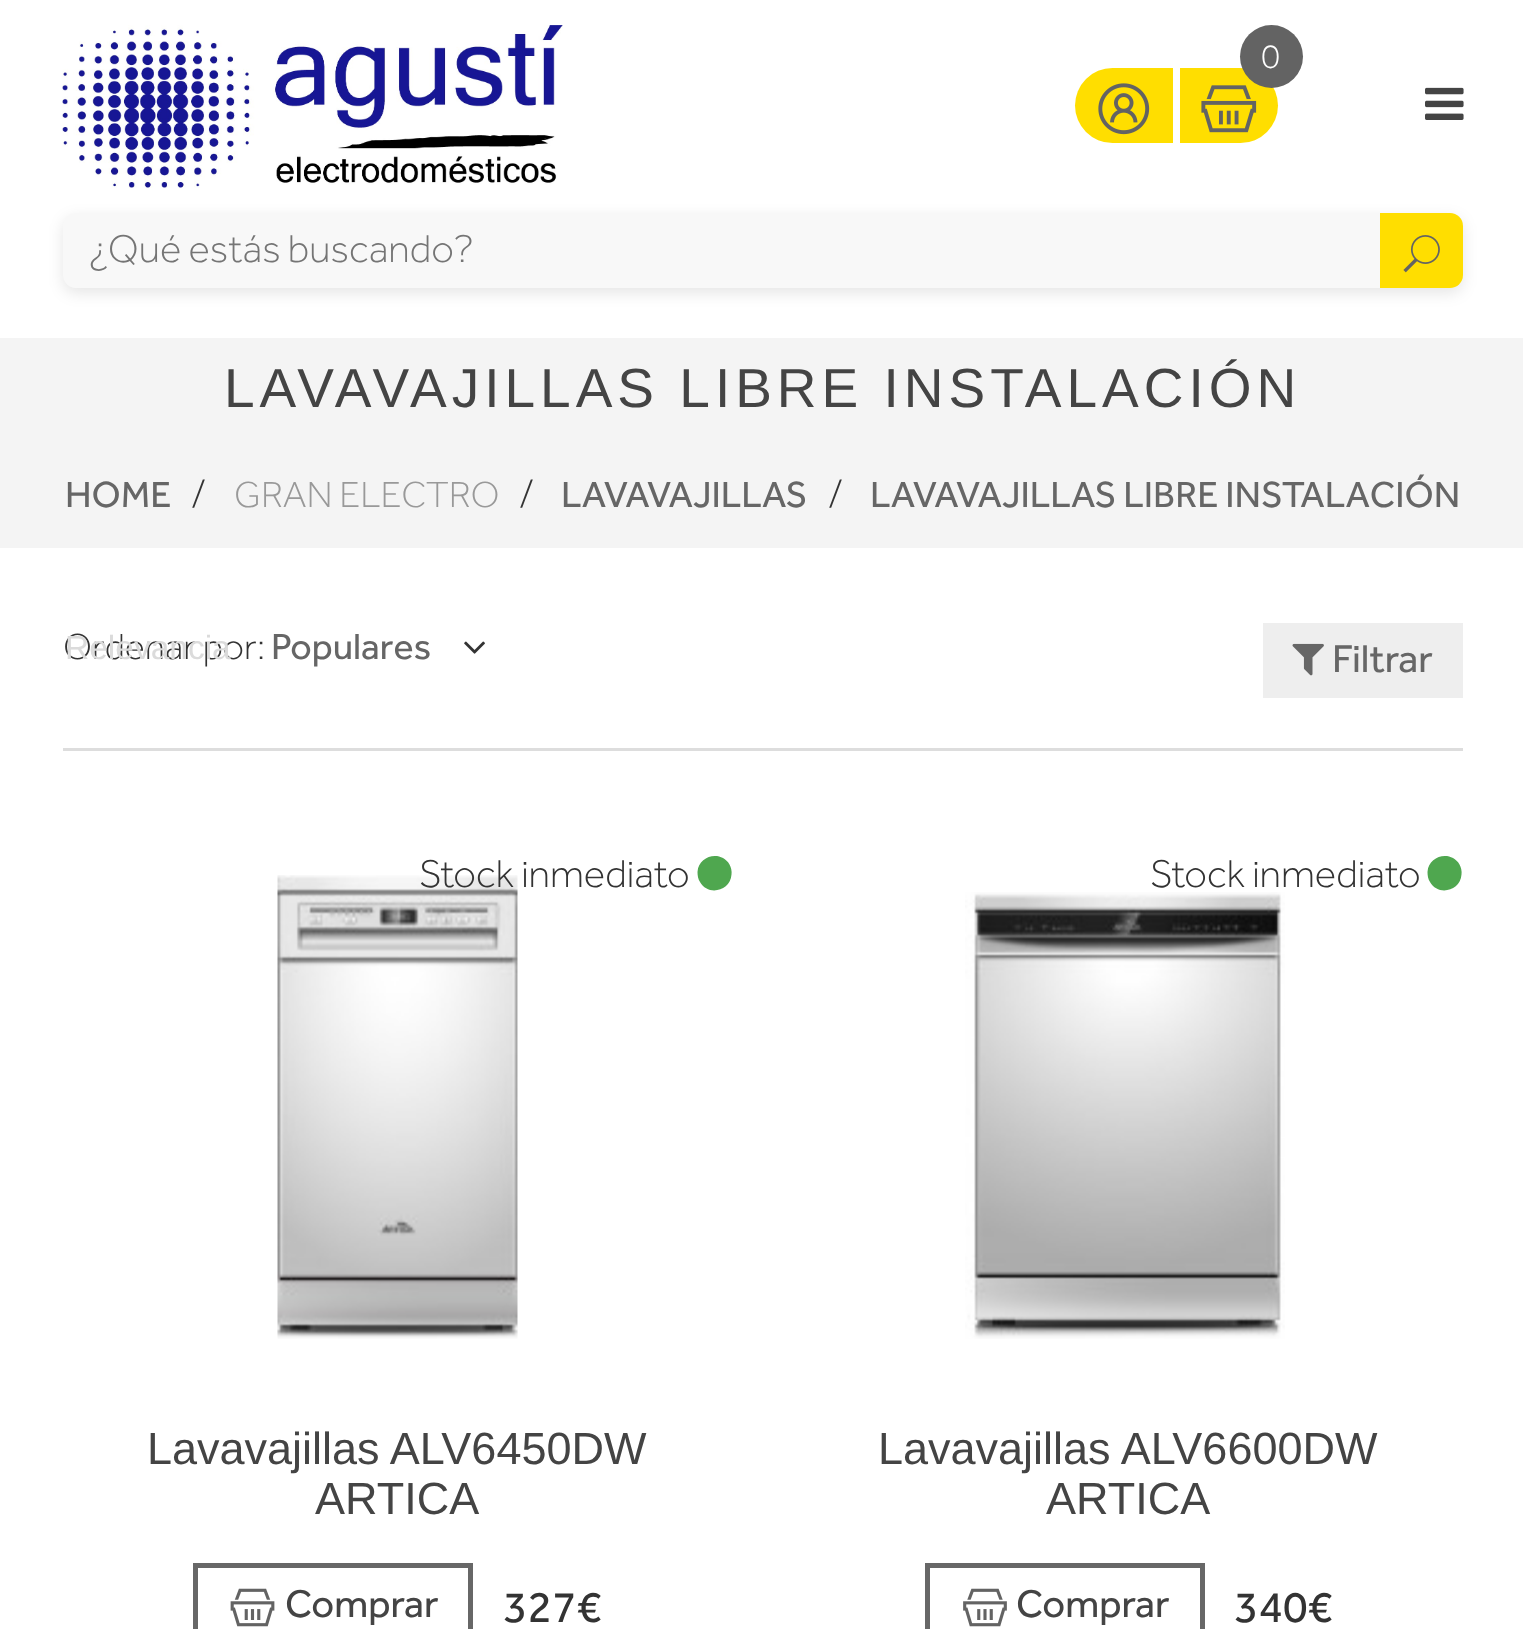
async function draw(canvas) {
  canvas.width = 1523;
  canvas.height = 1629;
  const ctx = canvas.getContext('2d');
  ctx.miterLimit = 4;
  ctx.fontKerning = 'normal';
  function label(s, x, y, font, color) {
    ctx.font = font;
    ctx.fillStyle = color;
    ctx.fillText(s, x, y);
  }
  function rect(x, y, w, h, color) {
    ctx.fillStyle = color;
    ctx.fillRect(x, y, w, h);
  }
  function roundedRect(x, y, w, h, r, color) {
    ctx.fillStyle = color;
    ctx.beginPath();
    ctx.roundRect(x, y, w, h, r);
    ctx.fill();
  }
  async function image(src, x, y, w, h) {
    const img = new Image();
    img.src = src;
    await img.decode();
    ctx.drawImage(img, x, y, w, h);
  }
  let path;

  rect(0, 0, 1523, 1629, '#fff');
  await image('assets/img1.png', 62, 25, 501, 163);
  ctx.fillStyle = '#ffde00';
  ctx.beginPath();
  ctx.roundRect(1180, 68, 98, 75, [0, 37.5, 37.5, 0]);
  ctx.fill();
  await image('assets/img2.png', 1201, 85, 56, 48);
  ctx.fillStyle = '#636363';
  ctx.beginPath();
  ctx.arc(1271.5, 56.5, 31.5, 0, 2 * Math.PI);
  ctx.fill();
  label('0', 1261, 68, '300 35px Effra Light', '#fff');
  ctx.fillStyle = '#ffde00';
  ctx.beginPath();
  ctx.roundRect(1075, 68, 98, 75, [37.5, 0, 0, 37.5]);
  ctx.fill();
  await image('assets/img3.png', 1098, 83, 52, 52);
  await image('assets/img4.png', 1425, 87, 39, 33);
  ctx.fillStyle = '#0000001a';
  ctx.filter = 'blur(7.5px)';
  ctx.beginPath();
  ctx.roundRect(63, 218, 1400, 75, 13);
  ctx.fill();
  ctx.filter = 'none';
  roundedRect(63, 213, 1400, 75, 13, '#f8f8f8');
  label('¿Qué estás buscando?', 88, 262, '300 40px Effra Light', '#757575');
  ctx.fillStyle = '#ffde00';
  ctx.beginPath();
  ctx.roundRect(1380, 213, 83, 75, [0, 13, 13, 0]);
  ctx.fill();
  await image('assets/img5.png', 1403, 235, 37, 38);
  rect(0, 338, 1523, 210, '#f4f4f4');
  ctx.letterSpacing = '5px';
  label('LAVAVAJILLAS LIBRE INSTALACIÓN', 224, 407, '55px Liberation Sans', '#444');
  ctx.letterSpacing = '0px';
  label('HOME', 65, 507, '37.5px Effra', '#666');
  label('/', 191, 507, '300 40px Effra Light', '#333');
  label('GRAN ELECTRO', 234, 507, '300 37.5px Effra Light', '#999');
  label('/', 519, 507, '300 40px Effra Light', '#333');
  label('LAVAVAJILLAS', 561, 507, '37.5px Effra', '#666');
  label('/', 828, 507, '300 40px Effra Light', '#333');
  label('LAVAVAJILLAS LIBRE INSTALACIÓN', 870, 507, '37.5px Effra', '#666');
  label('Ordenar por:', 63, 659, '300 37.5px Effra Light', '#333');
  label('Relevancia', 65, 659, '33.5px Liberation Sans', '#dbdbdb');
  label('Populares', 271, 659, '37.5px Effra', '#666');
  await image('assets/img6.png', 464, 641, 21, 13);
  rect(1263, 623, 200, 75, '#eee');
  await image('assets/img7.png', 1292, 643, 32, 33);
  label('Filtrar', 1332, 672, '40px Effra', '#666');
  rect(63, 748, 1400, 3, '#ddd');
  await image('assets/img8.png', 277, 875, 241, 464);
  label('Stock inmediato', 419, 887, '300 40px Effra Light', '#333');
  ctx.fillStyle = '#4fa74f';
  path = new Path2D('M729.5 864.5C731 867.5 732 871 731.5 874.5C730.5 891 708 896.5 700 882C698 879 697.5 875.5 697.5 872C698.5 855.5 721 850 729.5 864.5Z');
  ctx.fill(path);
  label('Lavavajillas ALV6450DW', 147, 1464, '45px Liberation Sans', '#444');
  label('ARTICA', 315, 1514, '45px Liberation Sans', '#444');
  ctx.strokeStyle = '#676767';
  ctx.lineWidth = 5;
  ctx.strokeRect(195.5, 1565.5, 275, 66);
  await image('assets/img9.png', 230, 1588, 45, 39);
  label('Comprar', 285, 1617, '40px Effra', '#444');
  label('327€', 503, 1622, '45px Effra', '#333');
  label('Stock inmediato', 1150, 887, '300 40px Effra Light', '#333');
  ctx.fillStyle = '#4fa74f';
  path = new Path2D('M1459.5 864.5C1461 867.5 1462 871 1461.5 874.5C1460.5 891 1438 896.5 1430 882C1428 879 1427.5 875.5 1427.5 872C1428.5 855.5 1451 850 1459.5 864.5Z');
  ctx.fill(path);
  await image('assets/img10.png', 965, 892, 320, 447);
  label('Lavavajillas ALV6600DW', 878, 1464, '45px Liberation Sans', '#444');
  label('ARTICA', 1046, 1514, '45px Liberation Sans', '#444');
  ctx.strokeRect(927.5, 1565.5, 275, 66);
  await image('assets/img11.png', 963, 1588, 44, 39);
  label('Comprar', 1016, 1617, '40px Effra', '#444');
  label('340€', 1234, 1622, '45px Effra', '#333');
}

draw(document.querySelector('canvas'));
